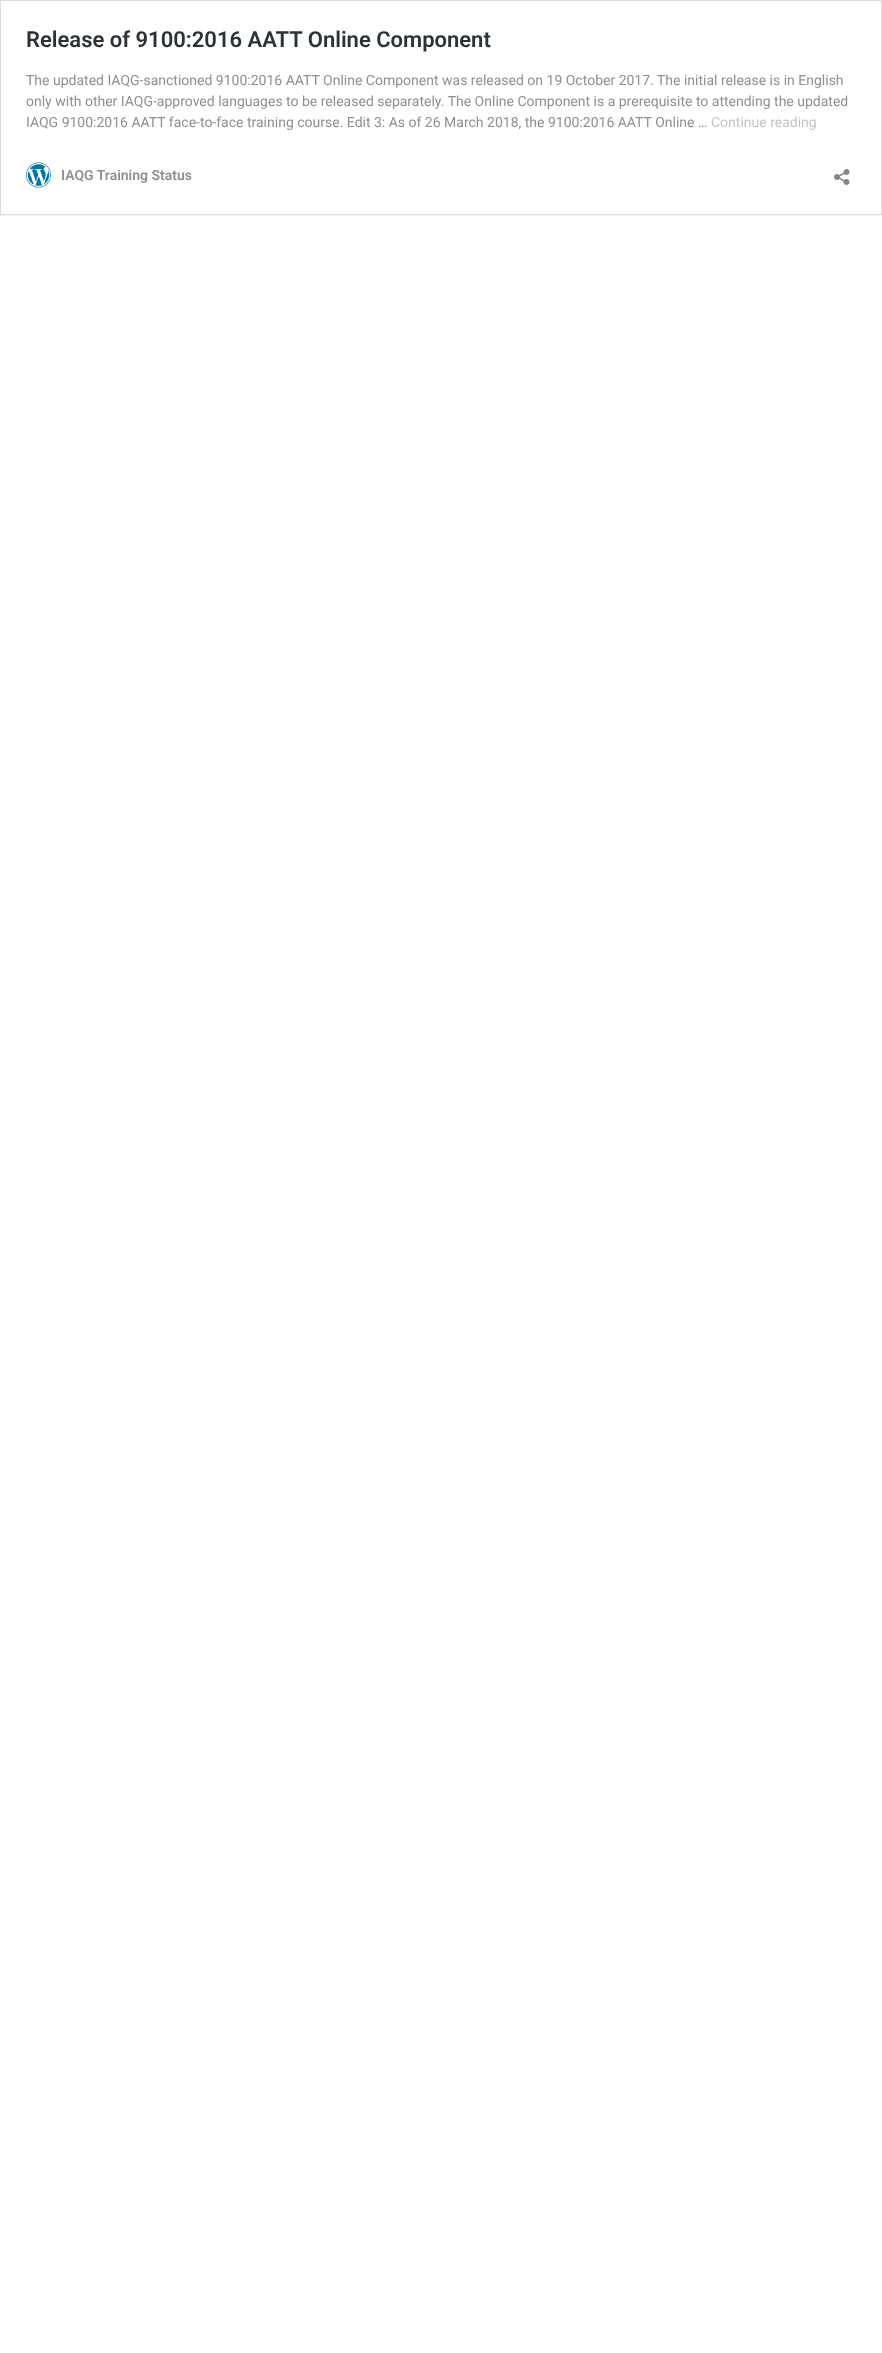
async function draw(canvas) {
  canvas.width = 882;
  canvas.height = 2353;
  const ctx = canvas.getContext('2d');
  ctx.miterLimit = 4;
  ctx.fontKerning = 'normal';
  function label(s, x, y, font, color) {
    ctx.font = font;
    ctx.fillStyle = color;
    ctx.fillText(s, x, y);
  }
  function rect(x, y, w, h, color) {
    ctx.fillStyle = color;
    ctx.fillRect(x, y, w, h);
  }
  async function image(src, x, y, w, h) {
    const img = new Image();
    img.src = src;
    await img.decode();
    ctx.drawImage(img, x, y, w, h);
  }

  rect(0, 0, 882, 2353, '#fff');
  ctx.save();
  ctx.beginPath();
  ctx.rect(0, 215, 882, 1);
  ctx.clip();
  ctx.fillStyle = '#0000000d';
  ctx.filter = 'blur(0.5px)';
  ctx.beginPath();
  ctx.rect(0, 1, 882, 215);
  ctx.fill();
  ctx.filter = 'none';
  ctx.restore();
  ctx.strokeStyle = '#dcdcde';
  ctx.strokeRect(0.5, 0.5, 881, 214);
  label('Release of 9100:2016 AATT Online Component', 26, 47, '600 22px Roboto', '#2c3338');
  label('The updated IAQG-sanctioned 9100:2016 AATT Online Component was released on 19 October 2017. The initial release is in English', 26, 85, '14px Roboto', '#8c8f94');
  label('only with other IAQG-approved languages to be released separately. The Online Component is a prerequisite to attending the updated', 26, 106, '14px Roboto', '#8c8f94');
  label('IAQG 9100:2016 AATT face-to-face training course. Edit 3: As of 26 March 2018, the 9100:2016 AATT Online …', 26, 127, '14px Roboto', '#8c8f94');
  label('Continue reading', 711, 127, '14px Roboto', '#c3c4c7');
  await image('assets/img1.png', 26, 162, 25, 26);
  label('IAQG Training Status', 61, 180, '600 14px Roboto', '#8c8f94');
  await image('assets/img2.png', 834, 169, 16, 16);
}

draw(document.querySelector('canvas'));
